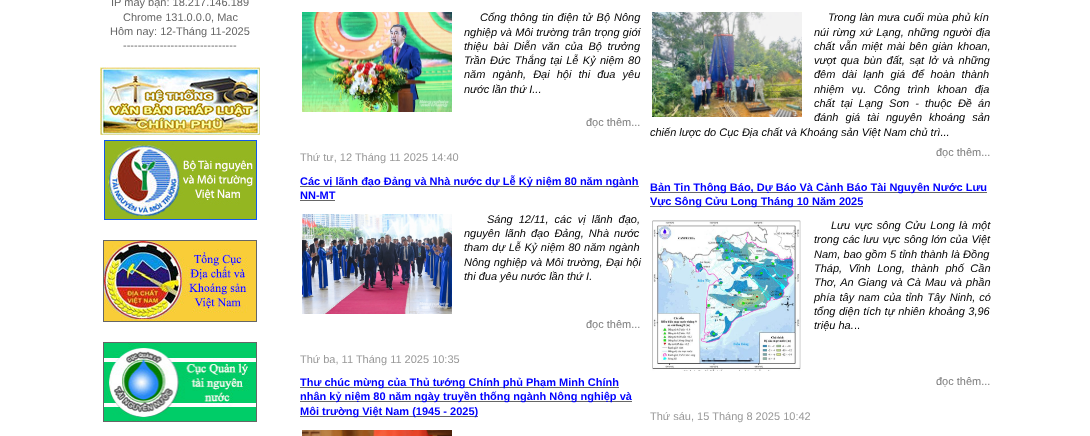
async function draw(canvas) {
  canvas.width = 1090;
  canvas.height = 436;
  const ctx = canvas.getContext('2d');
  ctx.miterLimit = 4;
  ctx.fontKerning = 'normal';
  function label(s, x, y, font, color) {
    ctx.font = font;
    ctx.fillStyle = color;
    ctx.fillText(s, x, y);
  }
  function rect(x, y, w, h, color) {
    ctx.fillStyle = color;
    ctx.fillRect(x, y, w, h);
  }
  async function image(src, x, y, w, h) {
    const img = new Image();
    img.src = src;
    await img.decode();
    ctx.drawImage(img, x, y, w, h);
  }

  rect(0, 0, 1090, 436, '#fff');
  label('IP máy bạn: 18.217.146.189', 111, 6, '11px Liberation Sans', '#666');
  label('Chrome 131.0.0.0, Mac', 123, 21, '11px Liberation Sans', '#666');
  label('Hôm nay: 12-Tháng 11-2025', 110, 35, '11px Liberation Sans', '#666');
  label('-------------------------------', 123, 49, '11px Liberation Sans', '#666');
  await image('assets/img1.png', 100, 67, 160, 68);
  ctx.strokeStyle = '#1258ec';
  ctx.strokeRect(104.5, 140.5, 152, 79);
  await image('assets/img2.png', 105, 141, 151, 78);
  ctx.strokeStyle = '#666';
  ctx.strokeRect(103.5, 240.5, 153, 81);
  await image('assets/img3.png', 104, 241, 152, 80);
  ctx.strokeRect(103.5, 342.5, 153, 79);
  await image('assets/img4.png', 104, 343, 152, 78);
  await image('assets/img5.png', 302, 12, 150, 100);
  ctx.wordSpacing = '1px';
  label('Cổng thông tin điện tử Bộ Nông', 480, 21, 'italic 11px Liberation Sans', '#000');
  ctx.wordSpacing = '0.25px';
  label('nghiệp và Môi trường trân trọng giới', 464, 36, 'italic 11px Liberation Sans', '#000');
  ctx.wordSpacing = '2.5px';
  label('thiệu bài Diễn văn của Bộ trưởng', 464, 50, 'italic 11px Liberation Sans', '#000');
  ctx.wordSpacing = '1.25px';
  label('Trần Đức Thắng tại Lễ Kỷ niệm 80', 464, 64, 'italic 11px Liberation Sans', '#000');
  ctx.wordSpacing = '4px';
  label('năm ngành, Đại hội thi đua yêu', 464, 78, 'italic 11px Liberation Sans', '#000');
  ctx.wordSpacing = '0px';
  label('nước lần thứ I...', 464, 93, 'italic 11px Liberation Sans', '#000');
  label('đọc thêm...', 586, 126, '11px Liberation Sans', '#7c7c7c');
  label('Thứ tư, 12 Tháng 11 2025 14:40', 300, 161, '11px Liberation Sans', '#999');
  rect(300, 186, 339, 1, '#666');
  label('Các vị lãnh đạo Đảng và Nhà nước dự Lễ Kỷ niệm 80 năm ngành', 300, 185, 'bold 11px Liberation Sans', '#00f');
  label('NN-MT', 300, 199, 'bold 11px Liberation Sans', '#00f');
  rect(300, 200, 35, 1, '#666');
  await image('assets/img6.png', 302, 214, 150, 100);
  ctx.wordSpacing = '3px';
  label('Sáng 12/11, các vị lãnh đạo,', 487, 223, 'italic 11px Liberation Sans', '#000');
  ctx.wordSpacing = '2px';
  label('nguyên lãnh đạo Đảng, Nhà nước', 464, 237, 'italic 11px Liberation Sans', '#000');
  ctx.wordSpacing = '0.5px';
  label('tham dự Lễ Kỷ niệm 80 năm ngành', 464, 251, 'italic 11px Liberation Sans', '#000');
  label('Nông nghiệp và Môi trường, Đại hội', 464, 266, 'italic 11px Liberation Sans', '#000');
  ctx.wordSpacing = '0px';
  label('thi đua yêu nước lần thứ I.', 464, 280, 'italic 11px Liberation Sans', '#000');
  label('đọc thêm...', 586, 328, '11px Liberation Sans', '#7c7c7c');
  label('Thứ ba, 11 Tháng 11 2025 10:35', 300, 363, '11px Liberation Sans', '#999');
  rect(300, 387, 319, 1, '#666');
  label('Thư chúc mừng của Thủ tướng Chính phủ Phạm Minh Chính', 300, 386, 'bold 11px Liberation Sans', '#00f');
  rect(300, 401, 332, 1, '#666');
  label('nhân kỷ niệm 80 năm ngày truyền thống ngành Nông nghiệp và', 300, 400, 'bold 11px Liberation Sans', '#00f');
  rect(300, 416, 178, 1, '#666');
  label('Môi trường Việt Nam (1945 - 2025)', 300, 415, 'bold 11px Liberation Sans', '#00f');
  await image('assets/img7.png', 302, 430, 150, 6);
  ctx.wordSpacing = '0.5px';
  label('Trong làn mưa cuối mùa phủ kín', 828, 21, 'italic 11px Liberation Sans', '#000');
  ctx.wordSpacing = '1px';
  label('núi rừng xứ Lạng, những người địa', 814, 36, 'italic 11px Liberation Sans', '#000');
  ctx.wordSpacing = '1.5px';
  label('chất vẫn miệt mài bên giàn khoan,', 814, 50, 'italic 11px Liberation Sans', '#000');
  label('vượt qua bùn đất, sạt lở và những', 814, 64, 'italic 11px Liberation Sans', '#000');
  ctx.wordSpacing = '3.5px';
  label('đêm dài lạnh giá để hoàn thành', 814, 78, 'italic 11px Liberation Sans', '#000');
  ctx.wordSpacing = '4.5px';
  label('nhiệm vụ. Công trình khoan địa', 814, 93, 'italic 11px Liberation Sans', '#000');
  ctx.wordSpacing = '3px';
  label('chất tại Lạng Sơn - thuộc Đề án', 814, 107, 'italic 11px Liberation Sans', '#000');
  ctx.wordSpacing = '4px';
  label('đánh giá tài nguyên khoáng sản', 814, 121, 'italic 11px Liberation Sans', '#000');
  ctx.wordSpacing = '0px';
  label('chiến lược do Cục Địa chất và Khoáng sản Việt Nam chủ trì...', 650, 136, 'italic 11px Liberation Sans', '#000');
  await image('assets/img8.png', 652, 12, 150, 105);
  label('đọc thêm...', 936, 156, '11px Liberation Sans', '#7c7c7c');
  rect(650, 192, 337, 1, '#666');
  label('Bản Tin Thông Báo, Dự Báo Và Cảnh Báo Tài Nguyên Nước Lưu', 650, 191, 'bold 11px Liberation Sans', '#00f');
  rect(650, 206, 213, 1, '#666');
  label('Vực Sông Cửu Long Tháng 10 Năm 2025', 650, 205, 'bold 11px Liberation Sans', '#00f');
  await image('assets/img9.png', 652, 220, 149, 151);
  ctx.wordSpacing = '1.25px';
  label('Lưu vực sông Cửu Long là một', 831, 229, 'italic 11px Liberation Sans', '#000');
  ctx.wordSpacing = '0.5px';
  label('trong các lưu vực sông lớn của Việt', 814, 243, 'italic 11px Liberation Sans', '#000');
  ctx.wordSpacing = '0.25px';
  label('Nam, bao gồm 5 tỉnh thành là Đồng', 814, 258, 'italic 11px Liberation Sans', '#000');
  ctx.wordSpacing = '3.5px';
  label('Tháp, Vĩnh Long, thành phố Cần', 814, 272, 'italic 11px Liberation Sans', '#000');
  ctx.wordSpacing = '1px';
  label('Thơ, An Giang và Cà Mau và phần', 814, 286, 'italic 11px Liberation Sans', '#000');
  label('phía tây nam của tỉnh Tây Ninh, có', 814, 301, 'italic 11px Liberation Sans', '#000');
  ctx.wordSpacing = '0.5px';
  label('tổng diện tích tự nhiên khoảng 3,96', 814, 315, 'italic 11px Liberation Sans', '#000');
  ctx.wordSpacing = '0px';
  label('triệu ha.', 814, 329, 'italic 11px Liberation Sans', '#000');
  label('..', 854, 329, '11px Liberation Sans', '#000');
  label('đọc thêm...', 936, 385, '11px Liberation Sans', '#7c7c7c');
  label('Thứ sáu, 15 Tháng 8 2025 10:42', 650, 420, '11px Liberation Sans', '#999');
}

draw(document.querySelector('canvas'));
